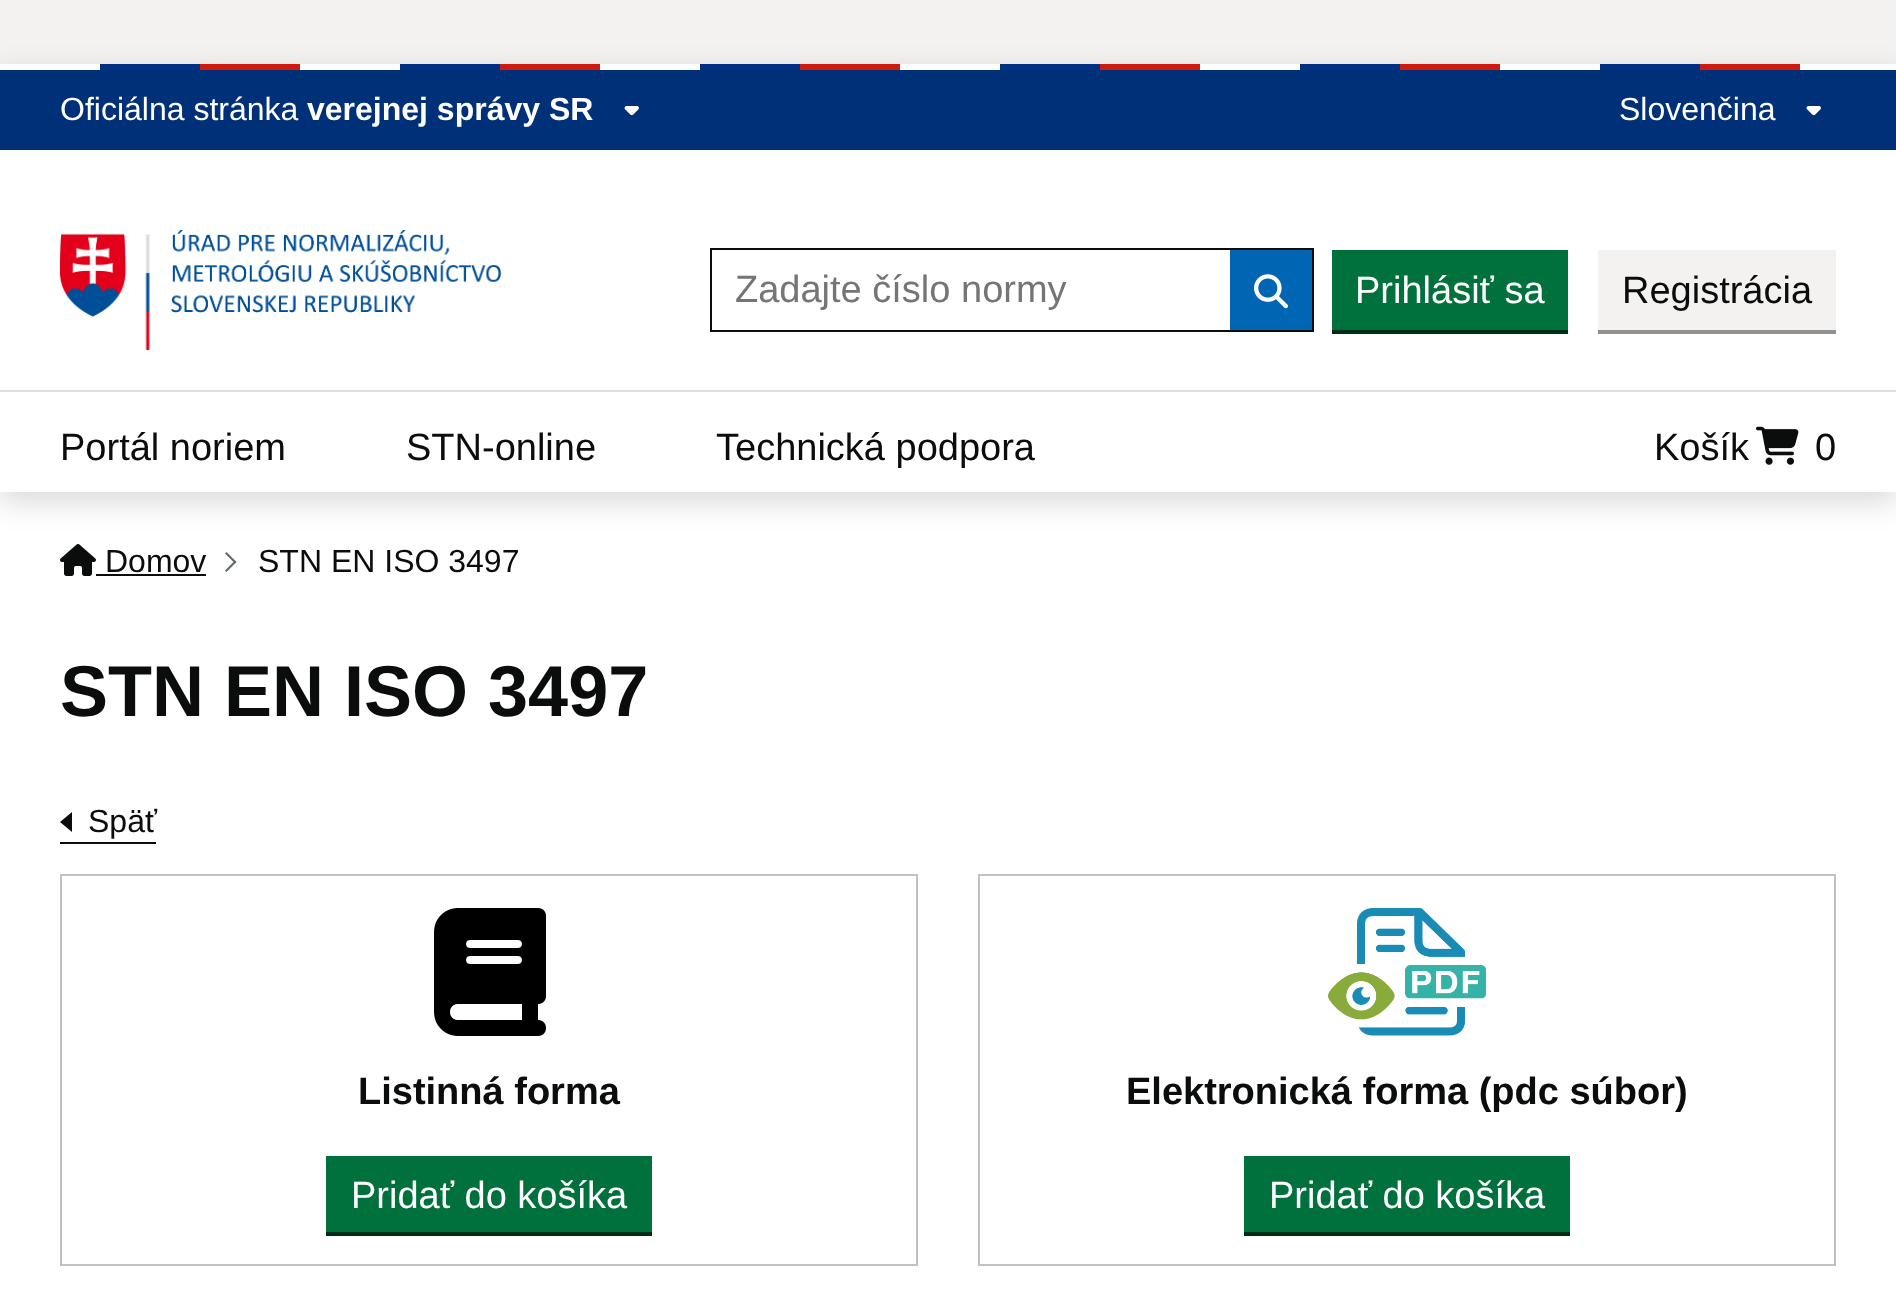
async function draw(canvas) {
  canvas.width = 1896;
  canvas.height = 1310;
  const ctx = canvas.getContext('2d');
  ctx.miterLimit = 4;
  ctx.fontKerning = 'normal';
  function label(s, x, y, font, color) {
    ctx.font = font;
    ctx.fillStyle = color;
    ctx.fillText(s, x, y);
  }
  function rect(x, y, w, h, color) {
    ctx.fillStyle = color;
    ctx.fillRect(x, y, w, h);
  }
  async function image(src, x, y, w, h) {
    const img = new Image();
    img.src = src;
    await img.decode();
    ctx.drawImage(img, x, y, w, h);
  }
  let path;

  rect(0, 0, 1896, 1310, '#fff');
  rect(0, 0, 1896, 64, '#f3f2f1');
  ctx.save();
  path = new Path2D('M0 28H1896V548H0ZM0 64H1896V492H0Z');
  ctx.clip(path, 'evenodd');
  ctx.fillStyle = '#00000026';
  ctx.filter = 'blur(15px)';
  ctx.beginPath();
  ctx.rect(0, 74, 1896, 428);
  ctx.fill();
  ctx.filter = 'none';
  ctx.restore();
  await image('assets/img1.png', 100, 64, 1700, 6);
  rect(0, 70, 1896, 80, '#003078');
  label('Oficiálna stránka', 60, 120, '32px Liberation Sans', '#fff');
  label('verejnej správy SR', 307, 120, 'bold 32px Liberation Sans', '#fff');
  await image('assets/img2.png', 624, 106, 15, 10);
  label('Slovenčina', 1619, 120, '32px Liberation Sans', '#fff');
  await image('assets/img2.png', 1806, 106, 15, 10);
  await image('assets/img3.png', 60, 230, 442, 120);
  ctx.strokeStyle = '#0b0c0c';
  ctx.lineWidth = 2;
  ctx.strokeRect(711, 249, 602, 82);
  label('Zadajte číslo normy', 735, 302, '38px Liberation Sans', '#757575');
  rect(1230, 250, 82, 80, '#0065b3');
  await image('assets/img4.png', 1254, 274, 34, 35);
  rect(1332, 330, 236, 4, '#002d18');
  rect(1332, 250, 236, 80, '#00703c');
  label('Prihlásiť sa', 1355, 303, '38px Liberation Sans', '#fff');
  rect(1598, 330, 238, 4, '#929191');
  rect(1598, 250, 238, 80, '#f3f2f1');
  label('Registrácia', 1622, 303, '38px Liberation Sans', '#0b0c0c');
  rect(0, 390, 1896, 2, '#dee0e2');
  label('Portál noriem', 60, 460, '38px Liberation Sans', '#0b0c0c');
  label('STN-online', 406, 460, '38px Liberation Sans', '#0b0c0c');
  label('Technická podpora', 716, 460, '38px Liberation Sans', '#0b0c0c');
  label('Košík', 1654, 460, '38px Liberation Sans', '#0b0c0c');
  await image('assets/img5.png', 1756, 426, 43, 39);
  label('0', 1815, 460, '38px Liberation Sans', '#0b0c0c');
  await image('assets/img6.png', 60, 544, 36, 32);
  label('Domov', 105, 572, '32px Liberation Sans', '#0b0c0c');
  rect(96, 574, 110, 2, '#0b0c0c');
  ctx.fillStyle = '#626a6e';
  path = new Path2D('M226.5 552L236.5 562L235 563.5L225 553.5Z');
  ctx.fill(path);
  path = new Path2D('M235 560.5L236.5 562L226.5 572L225 570.5Z');
  ctx.fill(path);
  label('STN EN ISO 3497', 258, 572, '32px Liberation Sans', '#0b0c0c');
  label('STN EN ISO 3497', 60, 716, 'bold 72px Liberation Sans', '#0b0c0c');
  rect(60, 842, 96, 2, '#0b0c0c');
  path = new Path2D('M72 812L60 822L72 832Z');
  ctx.fill(path);
  label('Späť', 88, 832, '32px Liberation Sans', '#0b0c0c');
  ctx.strokeStyle = '#bfc1c3';
  ctx.strokeRect(61, 875, 856, 390);
  await image('assets/img7.png', 434, 908, 112, 128);
  label('Listinná forma', 358, 1104, 'bold 38px Liberation Sans', '#0b0c0c');
  rect(326, 1232, 326, 4, '#002d18');
  rect(326, 1156, 326, 76, '#00703c');
  label('Pridať do košíka', 351, 1208, '38px Liberation Sans', '#fff');
  ctx.strokeRect(979, 875, 856, 390);
  await image('assets/img8.png', 1328, 908, 158, 128);
  label('Elektronická forma (pdc súbor)', 1126, 1104, 'bold 38px Liberation Sans', '#0b0c0c');
  rect(1244, 1232, 326, 4, '#002d18');
  rect(1244, 1156, 326, 76, '#00703c');
  label('Pridať do košíka', 1269, 1208, '38px Liberation Sans', '#fff');
}

draw(document.querySelector('canvas'));
